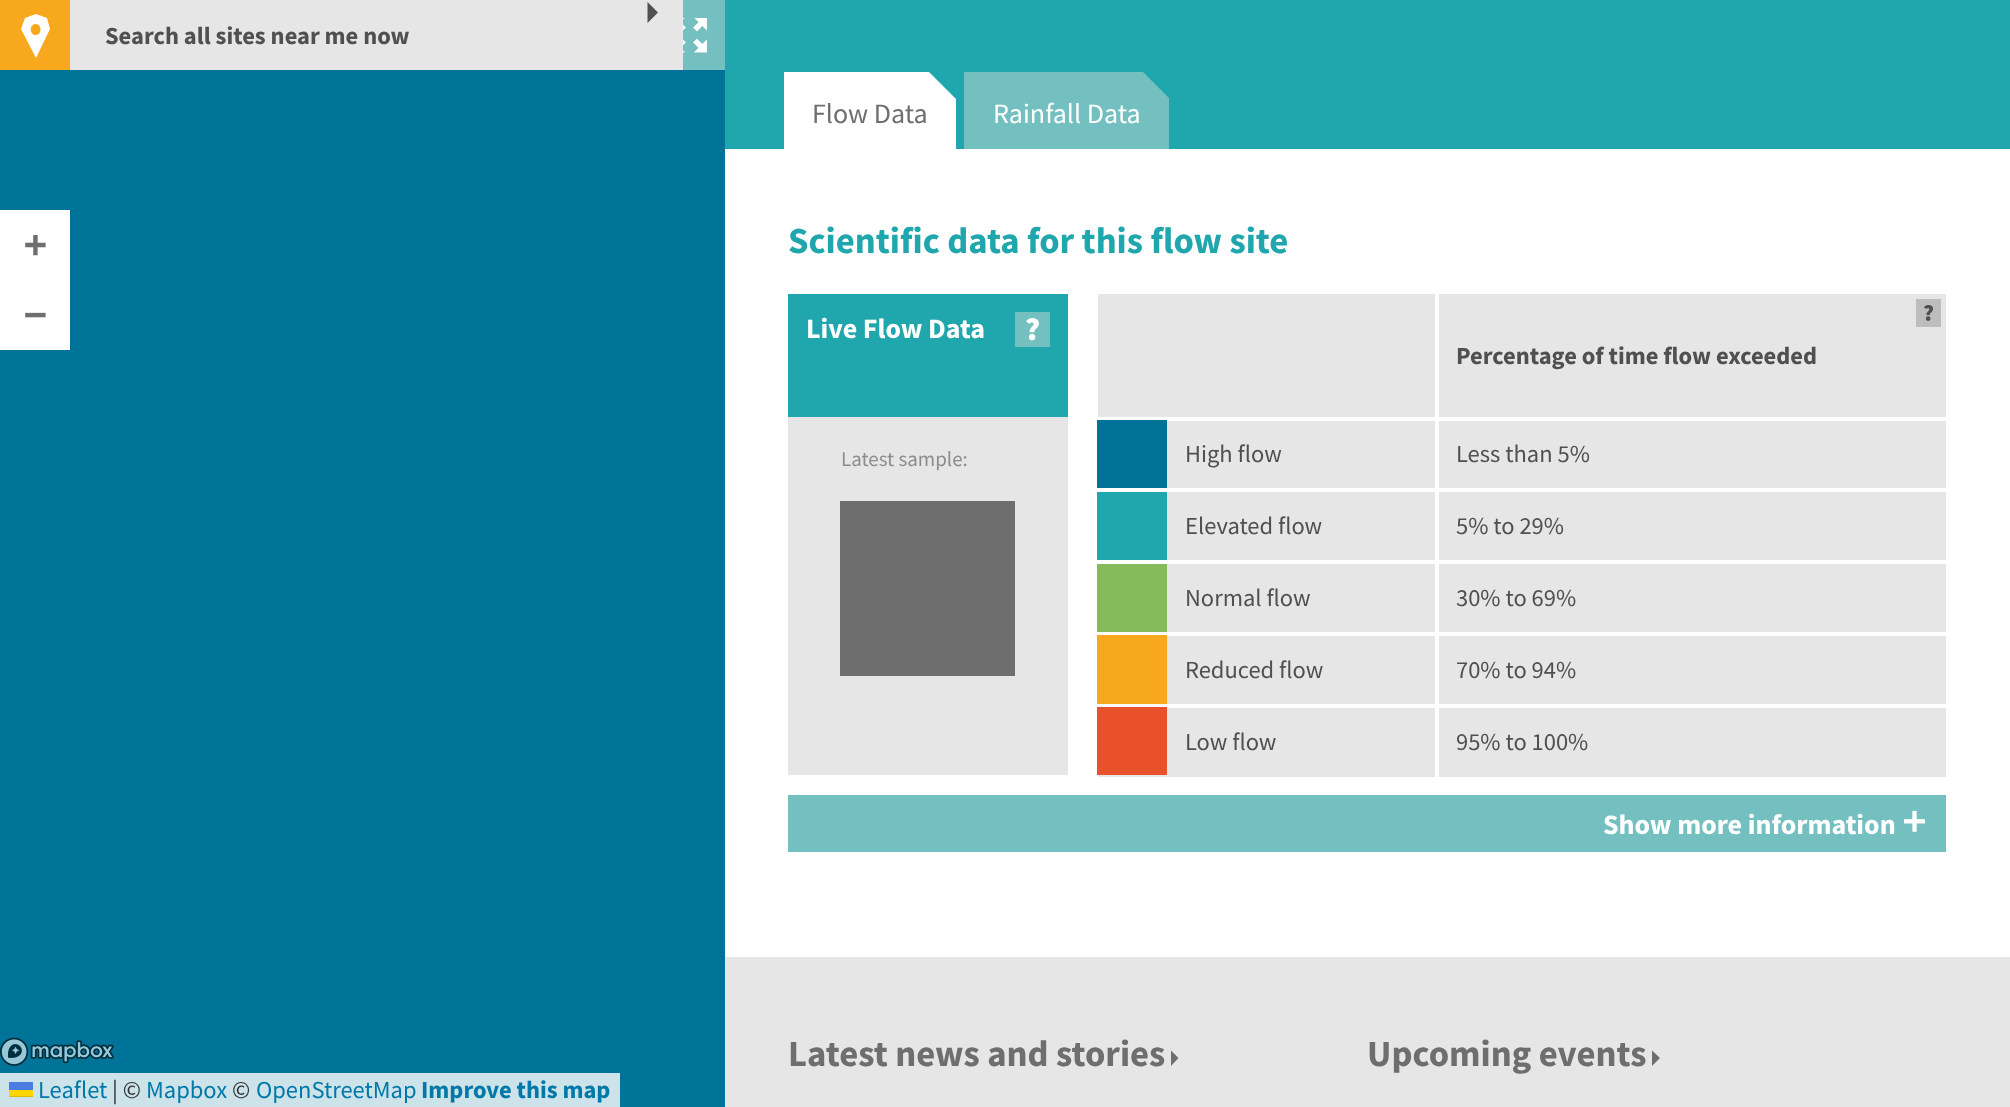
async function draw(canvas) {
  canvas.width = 2010;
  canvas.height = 1107;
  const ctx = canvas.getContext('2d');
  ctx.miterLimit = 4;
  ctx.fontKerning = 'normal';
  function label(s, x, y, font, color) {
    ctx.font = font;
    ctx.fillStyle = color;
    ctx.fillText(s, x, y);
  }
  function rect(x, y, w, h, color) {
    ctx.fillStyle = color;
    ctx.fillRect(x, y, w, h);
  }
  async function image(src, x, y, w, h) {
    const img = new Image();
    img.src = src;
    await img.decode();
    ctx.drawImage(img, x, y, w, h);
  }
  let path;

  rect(0, 0, 2010, 1107, '#fff');
  rect(0, 70, 725, 1037, '#007398');
  rect(0, 0, 70, 70, '#f8a81c');
  ctx.fillStyle = '#fff';
  path = new Path2D('M47 18L36 14L25 18L21 29L36 58L50 29ZM36 35C42 35 42 24 36 24C29 24 29 35 36 35Z');
  ctx.fill(path, 'evenodd');
  rect(70, 0, 613, 70, '#e7e6e6');
  ctx.fillStyle = '#505050';
  path = new Path2D('M647.5 23L658 12.5L647.5 2Z');
  ctx.fill(path);
  label('Search all sites near me now', 105, 44, 'bold 24.5px Source Sans Pro', '#505050');
  rect(0, 210, 70, 140, '#fff');
  label('+', 24, 257, 'bold 38px DejaVu Sans Mono', '#6e6e6e');
  label('−', 24, 327, 'bold 38px DejaVu Sans Mono', '#6e6e6e');
  rect(0, 1073, 620, 34, '#cce3ea');
  await image('assets/img1.png', 0, 1037, 114, 29);
  label('Leaflet', 38, 1098, '24.5px Source Sans Pro', '#0078a8');
  rect(9, 1082, 24, 8, '#4c7be1');
  rect(9, 1090, 24, 6, '#ffd500');
  rect(9, 1096, 24, 1, '#e0bc00');
  label('| ©', 112, 1098, '24.5px Source Sans Pro', '#333');
  label('Mapbox', 146, 1098, '24.5px Source Sans Pro', '#0078a8');
  label('©', 232, 1098, '24.5px Source Sans Pro', '#333');
  label('OpenStreetMap', 256, 1098, '24.5px Source Sans Pro', '#0078a8');
  label('Improve this map', 421, 1098, 'bold 24.5px Source Sans Pro', '#0078a8');
  rect(683, 0, 42, 70, '#74c0c1');
  await image('assets/img2.png', 683, 18, 24, 35);
  rect(725, 0, 1285, 149, '#20a7ad');
  rect(784, 72, 172, 77, '#fff');
  ctx.fillStyle = '#20a7ad';
  path = new Path2D('M964 72V107L929 72Z');
  ctx.fill(path);
  label('Flow Data', 812, 123, '28px Source Sans Pro', '#6e6e6e');
  rect(964, 72, 205, 77, '#74c0c1');
  ctx.fillStyle = '#20a7ad';
  path = new Path2D('M1178 72V107L1143 72Z');
  ctx.fill(path);
  label('Rainfall Data', 993, 123, '28px Source Sans Pro', '#fff');
  label('Scientific data for this flow site', 788, 253, 'bold 36.75px Source Sans Pro', '#20a7ad');
  rect(788, 294, 280, 123, '#20a7ad');
  label('Live Flow Data', 806, 338, 'bold 28px Source Sans Pro', '#fff');
  rect(1015, 312, 35, 35, '#74c0c1');
  await image('assets/img3.png', 1026, 318, 13, 23);
  rect(788, 417, 280, 358, '#e7e6e6');
  label('Latest sample:', 841, 466, '21px Source Sans Pro', '#8d8d8d');
  rect(840, 501, 175, 175, '#6e6e6e');
  rect(1098, 294, 848, 483, '#e7e6e6');
  rect(1916, 299, 25, 28, '#bdbdbd');
  await image('assets/img4.png', 1924, 305, 9, 16);
  label('Percentage of time flow exceeded', 1456, 364, 'bold 24.5px Source Sans Pro', '#505050');
  rect(1094, 417, 854, 4, '#fff');
  rect(1097, 420, 70, 68, '#007197');
  label('High flow', 1185, 462, '24.5px Source Sans Pro', '#505050');
  label('Less than 5%', 1456, 462, '24.5px Source Sans Pro', '#505050');
  rect(1094, 488, 854, 4, '#fff');
  rect(1097, 492, 70, 68, '#20a7ad');
  label('Elevated flow', 1185, 534, '24.5px Source Sans Pro', '#505050');
  label('5% to 29%', 1456, 534, '24.5px Source Sans Pro', '#505050');
  rect(1094, 560, 854, 4, '#fff');
  rect(1097, 564, 70, 68, '#85bb5b');
  label('Normal flow', 1185, 606, '24.5px Source Sans Pro', '#505050');
  label('30% to 69%', 1456, 606, '24.5px Source Sans Pro', '#505050');
  rect(1094, 632, 854, 4, '#fff');
  rect(1097, 635, 70, 69, '#f8a81c');
  label('Reduced flow', 1185, 678, '24.5px Source Sans Pro', '#505050');
  label('70% to 94%', 1456, 678, '24.5px Source Sans Pro', '#505050');
  rect(1094, 704, 854, 4, '#fff');
  rect(1097, 707, 70, 68, '#e85129');
  label('Low flow', 1185, 750, '24.5px Source Sans Pro', '#505050');
  rect(1435, 292, 4, 487, '#fff');
  label('95% to 100%', 1456, 750, '24.5px Source Sans Pro', '#505050');
  rect(788, 795, 1158, 57, '#74c0c1');
  label('Show more information', 1603, 834, 'bold 28px Source Sans Pro', '#fff');
  await image('assets/img5.png', 1904, 810, 21, 22);
  rect(725, 957, 1285, 150, '#e7e6e6');
  label('Latest news and stories', 788, 1066, 'bold 36.75px Source Sans Pro', '#6e6e6e');
  path = new Path2D('M1171 1066L1178.5 1058L1171 1050.5Z');
  ctx.fill(path);
  label('Upcoming events', 1367, 1066, 'bold 36.75px Source Sans Pro', '#6e6e6e');
  path = new Path2D('M1652 1066L1660 1058L1652 1050.5Z');
  ctx.fill(path);
}

draw(document.querySelector('canvas'));
